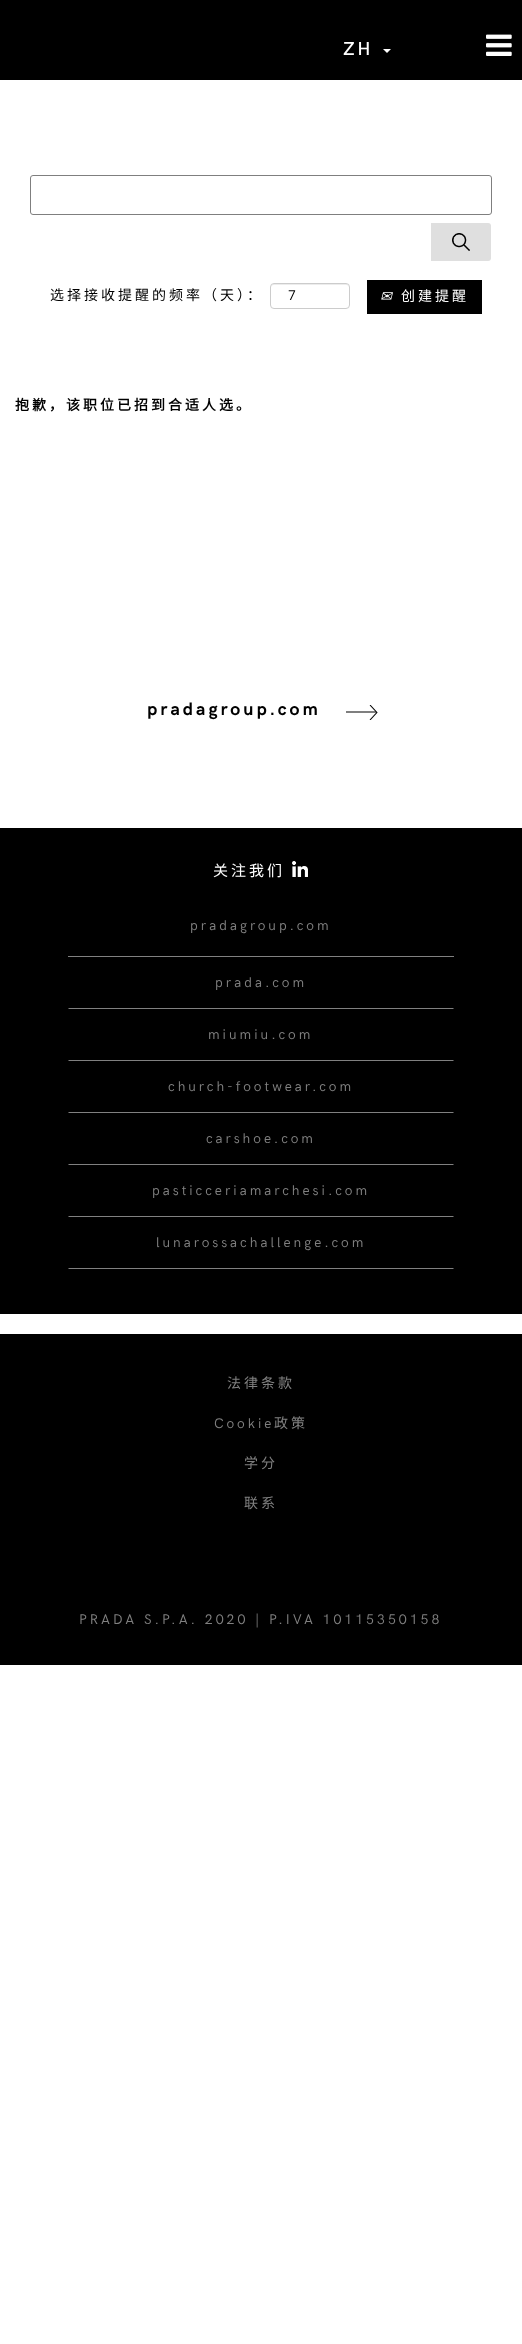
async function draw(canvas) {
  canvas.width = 522;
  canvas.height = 2344;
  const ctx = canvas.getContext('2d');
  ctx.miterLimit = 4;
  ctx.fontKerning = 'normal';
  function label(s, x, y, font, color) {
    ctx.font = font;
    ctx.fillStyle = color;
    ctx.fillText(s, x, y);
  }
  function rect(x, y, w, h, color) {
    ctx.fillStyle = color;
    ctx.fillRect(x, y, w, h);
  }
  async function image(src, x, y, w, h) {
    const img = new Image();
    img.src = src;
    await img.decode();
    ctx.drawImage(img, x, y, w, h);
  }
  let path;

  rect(0, 0, 522, 2344, '#fff');
  rect(0, 0, 522, 80, '#000');
  ctx.letterSpacing = '3px';
  label('ZH', 343, 55, 'bold 18px "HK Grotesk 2"', '#fff');
  path = new Path2D('M383 49H391L387 53Z');
  ctx.fill(path);
  await image('assets/img1.png', 486, 34, 26, 22);
  ctx.beginPath();
  ctx.roundRect(30.5, 175.5, 461, 39, 2.5);
  ctx.strokeStyle = '#7f7f7f';
  ctx.stroke();
  ctx.fillStyle = '#dfdfdf';
  ctx.beginPath();
  ctx.roundRect(431, 223, 60, 38, [0, 3, 3, 0]);
  ctx.fill();
  await image('assets/img2.png', 452, 233, 18, 18);
  label('选择接收提醒的频率（天）：', 50, 300, '14px Noto Sans CJK SC', '#000');
  ctx.fillStyle = '#ececec';
  path = new Path2D('M274 285H346C348 285 349 286 349 288C349 281 338 284 334 284H286C282 284 271 281 271 288C271 286 272 285 274 285Z');
  ctx.fill(path);
  ctx.beginPath();
  ctx.roundRect(270.5, 283.5, 79, 25, 3.5);
  ctx.strokeStyle = '#ccc';
  ctx.stroke();
  ctx.letterSpacing = '0px';
  label('7', 288, 300, '14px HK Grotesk', '#000');
  rect(367, 280, 115, 34, '#000');
  ctx.letterSpacing = '3px';
  label('✉', 380, 301, 'italic 14px DejaVu Sans', '#fff');
  label('创建提醒', 401, 301, '14px Noto Sans CJK SC', '#fff');
  label('抱歉，该职位已招到合适人选。', 15, 410, 'bold 14px Noto Sans CJK SC', '#000');
  label('pradagroup.com', 147, 715, 'bold 18px HK Grotesk', '#000');
  await image('assets/img3.png', 346, 705, 32, 15);
  rect(0, 828, 522, 486, '#000');
  label('关注我们', 213, 876, '15px Noto Sans CJK SC', '#fff');
  await image('assets/img4.png', 292, 861, 16, 16);
  rect(68, 956, 386, 1, '#808080');
  label('pradagroup.com', 190, 930, '14px HK Grotesk', '#808080');
  path = new Path2D('M454 1009H68L69 1008H453Z');
  ctx.fill(path);
  label('prada.com', 215, 987, '14px HK Grotesk', '#808080');
  path = new Path2D('M454 1061H68L69 1060H453Z');
  ctx.fill(path);
  label('miumiu.com', 208, 1039, '14px HK Grotesk', '#808080');
  path = new Path2D('M454 1113H68L69 1112H453Z');
  ctx.fill(path);
  label('church-footwear.com', 168, 1091, '14px HK Grotesk', '#808080');
  path = new Path2D('M454 1165H68L69 1164H453Z');
  ctx.fill(path);
  label('carshoe.com', 206, 1143, '14px HK Grotesk', '#808080');
  path = new Path2D('M454 1217H68L69 1216H453Z');
  ctx.fill(path);
  label('pasticceriamarchesi.com', 152, 1195, '14px HK Grotesk', '#808080');
  path = new Path2D('M454 1269H68L69 1268H453Z');
  ctx.fill(path);
  label('lunarossachallenge.com', 156, 1247, '14px HK Grotesk', '#808080');
  rect(0, 1334, 522, 331, '#000');
  label('法律条款', 227, 1388, '14px Noto Sans CJK SC', '#808080');
  label('Cookie', 214, 1428, '14px HK Grotesk', '#808080');
  label('政策', 274, 1428, '14px Noto Sans CJK SC', '#808080');
  label('学分', 244, 1468, '14px Noto Sans CJK SC', '#808080');
  label('联系', 244, 1508, '14px Noto Sans CJK SC', '#808080');
  label('PRADA S.P.A. 2020 | P.IVA 10115350158', 79, 1624, '14px HK Grotesk', '#808080');
}

draw(document.querySelector('canvas'));
